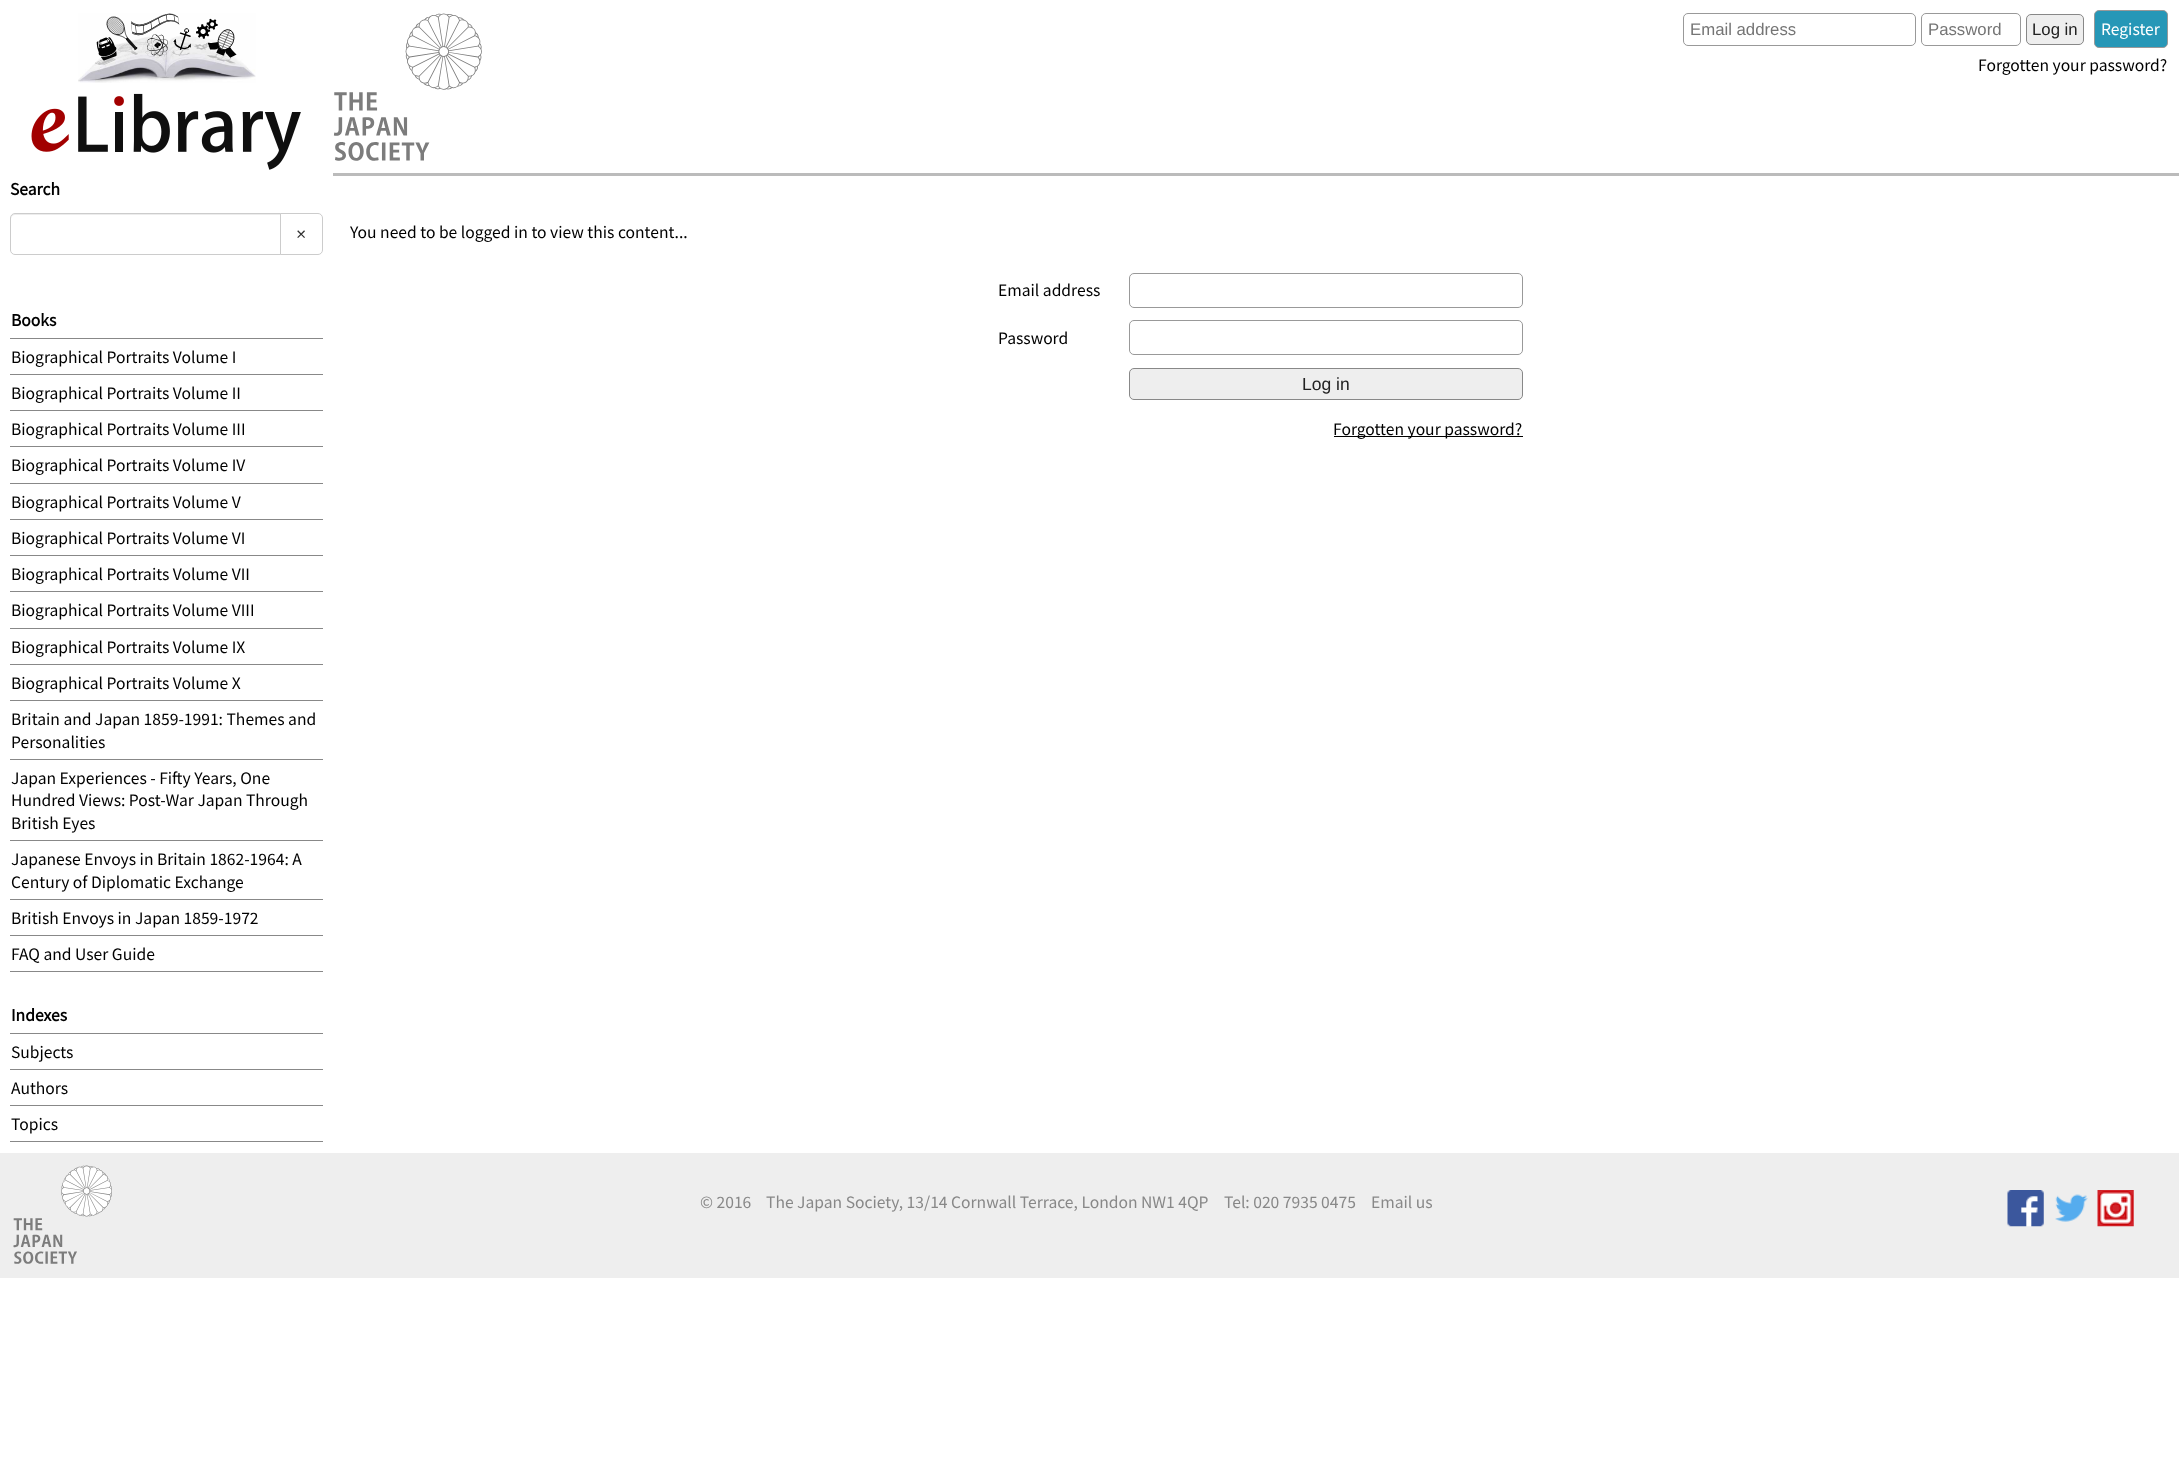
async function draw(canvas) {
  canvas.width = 2179;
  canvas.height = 1479;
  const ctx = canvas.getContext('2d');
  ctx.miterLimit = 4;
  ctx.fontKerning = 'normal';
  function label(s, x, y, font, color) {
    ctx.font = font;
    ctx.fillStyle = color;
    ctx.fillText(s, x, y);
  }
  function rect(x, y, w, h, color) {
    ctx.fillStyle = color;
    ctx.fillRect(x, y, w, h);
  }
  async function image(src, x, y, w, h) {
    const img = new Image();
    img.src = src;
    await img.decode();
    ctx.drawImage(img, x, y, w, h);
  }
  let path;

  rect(0, 0, 2179, 1479, '#fff');
  rect(333, 173, 1846, 3, '#bbb');
  await image('assets/img1.png', 333, 13, 149, 148);
  ctx.beginPath();
  ctx.roundRect(1683.5, 13.5, 232, 32, 4.5);
  ctx.strokeStyle = '#999';
  ctx.stroke();
  label('Email address', 1690, 35, '16.75px Liberation Sans', '#757575');
  ctx.beginPath();
  ctx.roundRect(1921.5, 13.5, 99, 32, 4.5);
  ctx.stroke();
  label('Password', 1928, 35, '16.75px Liberation Sans', '#757575');
  ctx.fillStyle = '#eee';
  ctx.beginPath();
  ctx.roundRect(2026.5, 14.5, 57, 30, 4.5);
  ctx.fill();
  ctx.strokeStyle = '#888';
  ctx.stroke();
  label('Log in', 2032, 35, '16.75px Liberation Sans', '#222');
  ctx.fillStyle = '#2697b7';
  ctx.beginPath();
  ctx.roundRect(2094.5, 10.5, 73, 37, 4.5);
  ctx.fill();
  ctx.strokeStyle = '#999';
  ctx.stroke();
  label('Register', 2101, 35, '17.5px Source Sans Pro', '#fff');
  label('Forgotten your password?', 1978, 71, '17.5px Source Sans Pro', '#000');
  await image('assets/img2.png', 78, 13, 178, 70);
  await image('assets/img3.png', 31, 93, 270, 77);
  label('Search', 10, 195, 'bold 17.5px Source Sans Pro', '#000');
  ctx.fillStyle = '#ececec';
  path = new Path2D('M15 215H280V214H15C12 214 11 216 11 219C11 217 13 215 15 215Z');
  ctx.fill(path);
  ctx.beginPath();
  ctx.roundRect(10.5, 213.5, 270, 41, [4.5, 0, 0, 4.5]);
  ctx.strokeStyle = '#ccc';
  ctx.stroke();
  ctx.fillStyle = '#fff';
  ctx.beginPath();
  ctx.roundRect(280.5, 213.5, 42, 41, [0, 4.5, 4.5, 0]);
  ctx.fill();
  ctx.stroke();
  label('×', 296, 240, '17.5px Liberation Sans', '#333');
  rect(10, 338, 313, 1, '#888');
  label('Books', 11, 326, 'bold 17.5px Source Sans Pro', '#000');
  rect(10, 374, 313, 1, '#888');
  label('Biographical Portraits Volume I', 11, 363, '17.5px Source Sans Pro', '#000');
  rect(10, 410, 313, 1, '#888');
  label('Biographical Portraits Volume II', 11, 399, '17.5px Source Sans Pro', '#000');
  rect(10, 446, 313, 1, '#888');
  label('Biographical Portraits Volume III', 11, 435, '17.5px Source Sans Pro', '#000');
  rect(10, 483, 313, 1, '#888');
  label('Biographical Portraits Volume IV', 11, 471, '17.5px Source Sans Pro', '#000');
  rect(10, 519, 313, 1, '#888');
  label('Biographical Portraits Volume V', 11, 508, '17.5px Source Sans Pro', '#000');
  rect(10, 555, 313, 1, '#888');
  label('Biographical Portraits Volume VI', 11, 544, '17.5px Source Sans Pro', '#000');
  rect(10, 591, 313, 1, '#888');
  label('Biographical Portraits Volume VII', 11, 580, '17.5px Source Sans Pro', '#000');
  rect(10, 628, 313, 1, '#888');
  label('Biographical Portraits Volume VIII', 11, 616, '17.5px Source Sans Pro', '#000');
  rect(10, 664, 313, 1, '#888');
  label('Biographical Portraits Volume IX', 11, 653, '17.5px Source Sans Pro', '#000');
  rect(10, 700, 313, 1, '#888');
  label('Biographical Portraits Volume X', 11, 689, '17.5px Source Sans Pro', '#000');
  rect(10, 759, 313, 1, '#888');
  label('Britain and Japan 1859-1991: Themes and', 11, 725, '17.5px Source Sans Pro', '#000');
  label('Personalities', 11, 748, '17.5px Source Sans Pro', '#000');
  rect(10, 840, 313, 1, '#888');
  label('Japan Experiences - Fifty Years, One', 11, 784, '17.5px Source Sans Pro', '#000');
  label('Hundred Views: Post-War Japan Through', 11, 806, '17.5px Source Sans Pro', '#000');
  label('British Eyes', 11, 829, '17.5px Source Sans Pro', '#000');
  rect(10, 899, 313, 1, '#888');
  label('Japanese Envoys in Britain 1862-1964: A', 11, 865, '17.5px Source Sans Pro', '#000');
  label('Century of Diplomatic Exchange', 11, 888, '17.5px Source Sans Pro', '#000');
  rect(10, 935, 313, 1, '#888');
  label('British Envoys in Japan 1859-1972', 11, 924, '17.5px Source Sans Pro', '#000');
  rect(10, 971, 313, 1, '#888');
  label('FAQ and User Guide', 11, 960, '17.5px Source Sans Pro', '#000');
  rect(10, 1033, 313, 1, '#888');
  label('Indexes', 11, 1021, 'bold 17.5px Source Sans Pro', '#000');
  rect(10, 1069, 313, 1, '#888');
  label('Subjects', 11, 1058, '17.5px Source Sans Pro', '#000');
  rect(10, 1105, 313, 1, '#888');
  label('Authors', 11, 1094, '17.5px Source Sans Pro', '#000');
  rect(10, 1141, 313, 1, '#888');
  label('Topics', 11, 1130, '17.5px Source Sans Pro', '#000');
  label('You need to be logged in to view this content...', 350, 238, '17.5px Source Sans Pro', '#000');
  label('Email address', 998, 296, '17.5px Source Sans Pro', '#000');
  ctx.beginPath();
  ctx.roundRect(1129.5, 273.5, 393, 34, 4.5);
  ctx.strokeStyle = '#999';
  ctx.stroke();
  label('Password', 998, 344, '17.5px Source Sans Pro', '#000');
  ctx.beginPath();
  ctx.roundRect(1129.5, 320.5, 393, 34, 4.5);
  ctx.stroke();
  ctx.fillStyle = '#eee';
  ctx.beginPath();
  ctx.roundRect(1129.5, 368.5, 393, 31, 4.5);
  ctx.fill();
  ctx.strokeStyle = '#888';
  ctx.stroke();
  label('Log in', 1302, 390, '17.5px Liberation Sans', '#222');
  rect(1334, 436, 189, 1, '#000');
  label('Forgotten your password?', 1333, 435, '17.5px Source Sans Pro', '#000');
  rect(0, 1153, 2179, 125, '#eee');
  await image('assets/img4.png', 13, 1165, 99, 99);
  label('© 2016', 700, 1208, '17.5px Source Sans Pro', '#888');
  label('The Japan Society, 13/14 Cornwall Terrace, London NW1 4QP', 766, 1208, '17.5px Source Sans Pro', '#888');
  label('Tel: 020 7935 0475', 1224, 1208, '17.5px Source Sans Pro', '#888');
  label('Email us', 1371, 1208, '17.5px Source Sans Pro', '#888');
  await image('assets/img5.png', 2007, 1190, 37, 37);
  await image('assets/img6.png', 2055, 1194, 33, 28);
  await image('assets/img7.png', 2097, 1190, 37, 37);
}

draw(document.querySelector('canvas'));
